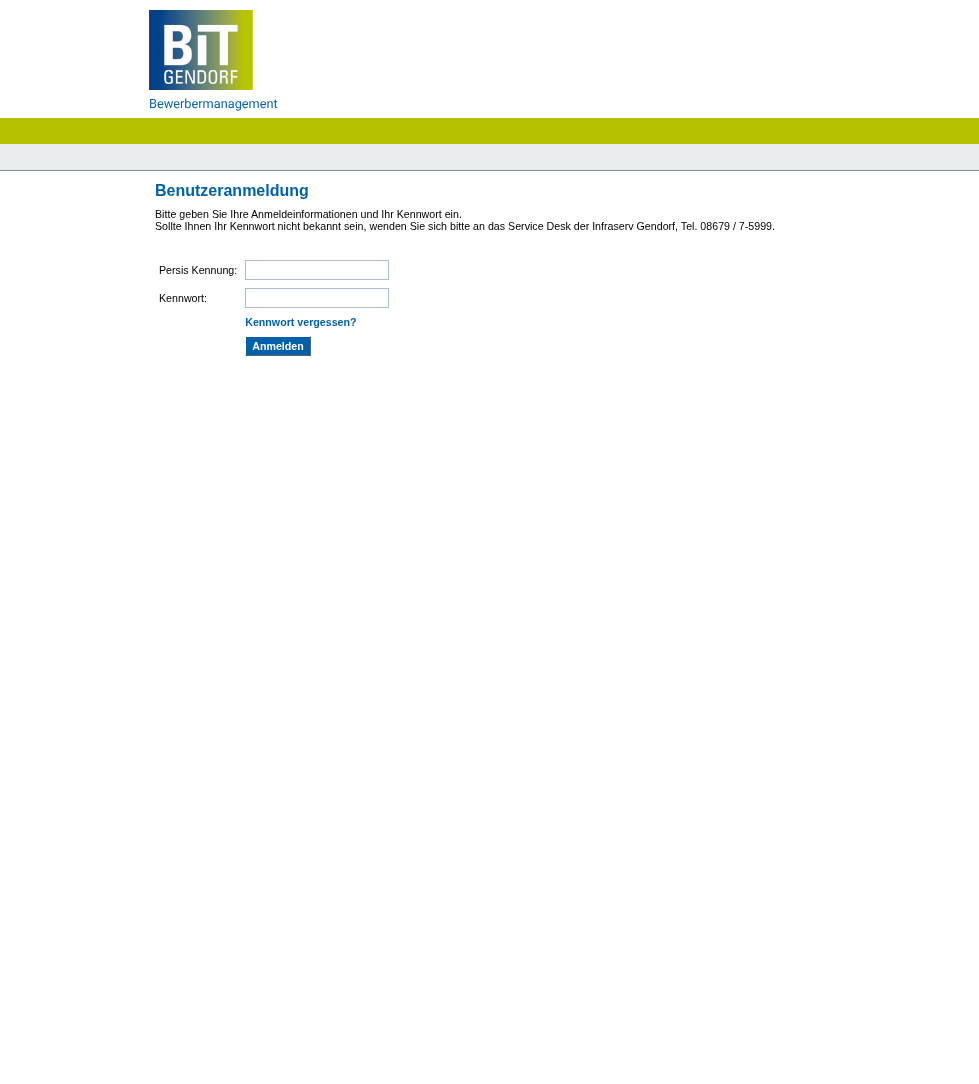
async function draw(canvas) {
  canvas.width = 979;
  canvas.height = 1084;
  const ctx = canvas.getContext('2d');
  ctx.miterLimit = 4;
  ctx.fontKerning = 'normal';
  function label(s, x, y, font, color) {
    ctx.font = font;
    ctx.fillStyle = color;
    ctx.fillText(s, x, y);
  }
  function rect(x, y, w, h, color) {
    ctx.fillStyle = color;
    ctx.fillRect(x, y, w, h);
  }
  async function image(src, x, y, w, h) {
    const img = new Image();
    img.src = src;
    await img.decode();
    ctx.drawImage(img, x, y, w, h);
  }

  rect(0, 0, 979, 1084, '#fff');
  await image('assets/img1.png', 149, 10, 104, 80);
  rect(0, 118, 979, 26, '#b5c200');
  label('Bewerbermanagement', 149, 108, '12.75px Roboto', '#0c62ad');
  rect(0, 144, 979, 26, '#e9ecef');
  rect(0, 170, 979, 1, '#868e96');
  await image('assets/img2.png', 155, 184, 619, 172);
}

draw(document.querySelector('canvas'));
